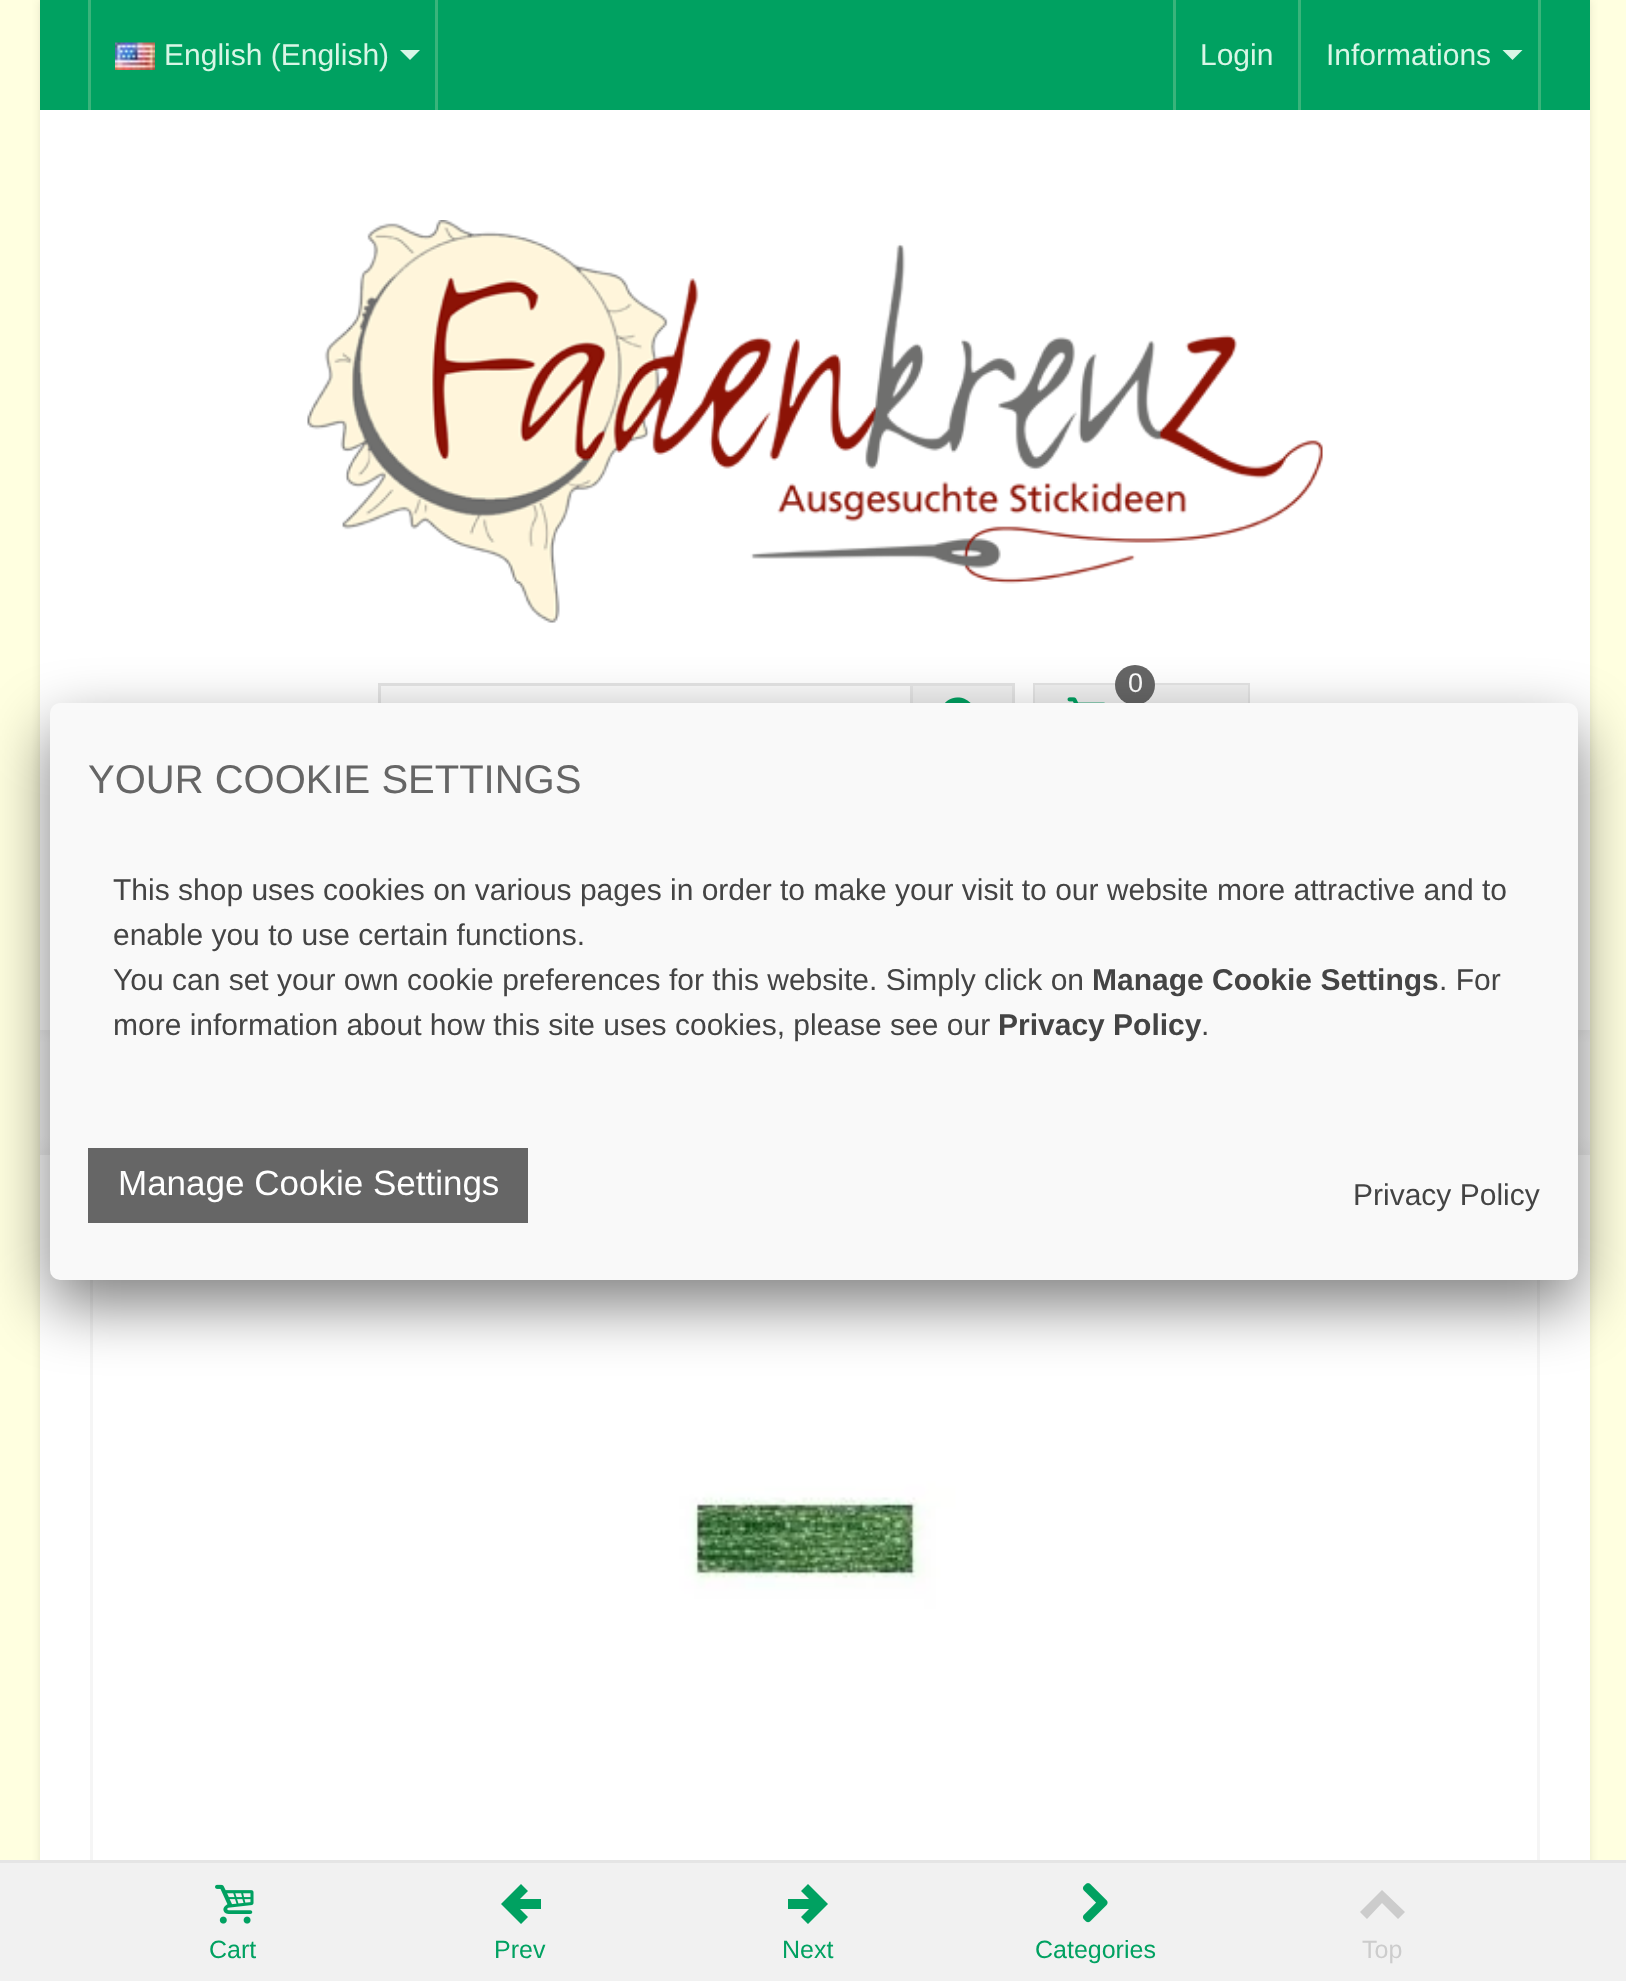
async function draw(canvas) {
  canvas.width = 1626;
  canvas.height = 1981;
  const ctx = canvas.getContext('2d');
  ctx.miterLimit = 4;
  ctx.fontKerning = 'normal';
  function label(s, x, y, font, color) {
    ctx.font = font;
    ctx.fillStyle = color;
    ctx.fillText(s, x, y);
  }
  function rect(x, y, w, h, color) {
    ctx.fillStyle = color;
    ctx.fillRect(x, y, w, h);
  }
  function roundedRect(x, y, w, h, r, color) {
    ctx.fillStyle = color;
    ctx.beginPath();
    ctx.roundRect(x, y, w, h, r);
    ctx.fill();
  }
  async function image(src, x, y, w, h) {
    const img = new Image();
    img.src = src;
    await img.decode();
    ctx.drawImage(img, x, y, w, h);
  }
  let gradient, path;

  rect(0, 0, 1626, 1981, '#ffffe0');
  ctx.fillStyle = '#0000001a';
  ctx.filter = 'blur(4px)';
  ctx.beginPath();
  ctx.rect(40, 0, 1550, 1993);
  ctx.fill();
  ctx.filter = 'none';
  rect(40, 110, 1550, 1750, '#fff');
  rect(40, 0, 1550, 110, '#00a161');
  rect(435, 0, 3, 110, '#3ab47b');
  rect(88, 0, 3, 110, '#3ab47b');
  await image('assets/img1.png', 115, 42, 40, 28);
  label('English (English)', 164, 65, '30px Liberation Sans', '#d8f6e6');
  path = new Path2D('M400 50H420L410 60Z');
  ctx.fill(path);
  rect(1298, 0, 3, 110, '#3ab47b');
  rect(1173, 0, 3, 110, '#3ab47b');
  label('Login', 1200, 65, '30px Liberation Sans', '#d8f6e6');
  rect(1538, 0, 3, 110, '#3ab47b');
  label('Informations', 1326, 65, '30px Liberation Sans', '#d8f6e6');
  path = new Path2D('M1502.5 50H1522.5L1512.5 60Z');
  ctx.fill(path);
  await image('assets/img2.png', 307, 220, 1016, 403);
  rect(381, 686, 529, 17, '#fafafa');
  rect(378, 683, 532, 3, '#e5e5e5');
  rect(378, 683, 3, 20, '#e5e5e5');
  rect(913, 686, 99, 17, '#f1f1f1');
  ctx.strokeStyle = '#e5e5e5';
  ctx.lineWidth = 3;
  ctx.strokeRect(911.5, 684.5, 102, 102);
  await image('assets/img3.png', 945, 697, 26, 6);
  ctx.strokeRect(1034.5, 684.5, 214, 102);
  rect(1035, 685, 92, 18, '#f1f1f1');
  rect(1143, 685, 105, 18, '#f1f1f1');
  ctx.fillStyle = '#666';
  ctx.beginPath();
  ctx.arc(1135, 685, 20, 0, 2 * Math.PI);
  ctx.fill();
  label('0', 1128, 692, '27px Liberation Sans', '#fff');
  await image('assets/img4.png', 1067, 697, 38, 6);
  gradient = ctx.createLinearGradient(815, 1030, 815, 1155);
  gradient.addColorStop(0, '#f2f2f2');
  gradient.addColorStop(0.1, '#f9f9f9');
  gradient.addColorStop(0.85, '#f9f9f9');
  gradient.addColorStop(1, '#f2f2f2');
  ctx.fillStyle = gradient;
  ctx.fillRect(40, 1030, 1550, 125);
  ctx.strokeStyle = '#f5f5f5';
  ctx.strokeRect(91.5, 1206.5, 1447, 662);
  await image('assets/img5.png', 485, 1280, 660, 580);
  ctx.fillStyle = '#00000080';
  ctx.filter = 'blur(31px)';
  ctx.beginPath();
  ctx.roundRect(50, 728, 1528, 577, 10);
  ctx.fill();
  ctx.filter = 'none';
  roundedRect(50, 703, 1528, 577, 10, '#f9f9f9');
  label('YOUR COOKIE SETTINGS', 88, 793, '40px Liberation Sans', '#666');
  label('This shop uses cookies on various pages in order to make your visit to our website more attractive and to', 113, 900, '30px Liberation Sans', '#444');
  label('enable you to use certain functions.', 113, 945, '30px Liberation Sans', '#444');
  label('You can set your own cookie preferences for this website. Simply click on', 113, 990, '30px Liberation Sans', '#444');
  label('Manage Cookie Settings', 1092, 990, 'bold 30px Liberation Sans', '#444');
  label('. For', 1439, 990, '30px Liberation Sans', '#444');
  label('more information about how this site uses cookies, please see our', 113, 1035, '30px Liberation Sans', '#444');
  label('Privacy Policy', 998, 1035, 'bold 30px Liberation Sans', '#444');
  label('.', 1201, 1035, '30px Liberation Sans', '#444');
  rect(88, 1148, 440, 75, '#666');
  label('Manage Cookie Settings', 118, 1195, '35px Liberation Sans', '#fff');
  label('Privacy Policy', 1353, 1205, '30px Liberation Sans', '#444');
  rect(0, 1863, 1626, 118, '#f1f1f1');
  rect(0, 1860, 1626, 3, '#e5e5e5');
  await image('assets/img6.png', 215, 1884, 39, 40);
  label('Cart', 209, 1958, '25px Liberation Sans', '#00a161');
  path = new Path2D('M521 1924L501 1904L521 1884L528 1891L520 1899H541V1909H520L528 1917Z');
  ctx.fill(path);
  label('Prev', 494, 1958, '25px Liberation Sans', '#00a161');
  path = new Path2D('M808 1884L828 1904L808 1924L801 1917L809 1909H788V1899H809L801 1891Z');
  ctx.fill(path);
  label('Next', 782, 1958, '25px Liberation Sans', '#00a161');
  await image('assets/img7.png', 1082, 1883, 26, 40);
  label('Categories', 1035, 1958, '25px Liberation Sans', '#00a161');
  ctx.fillStyle = '#ccc';
  path = new Path2D('M1360 1912L1382 1890L1405 1912L1398 1919L1382 1903L1367 1919Z');
  ctx.fill(path);
  label('Top', 1362, 1958, '25px Liberation Sans', '#ccc');
}

draw(document.querySelector('canvas'));
